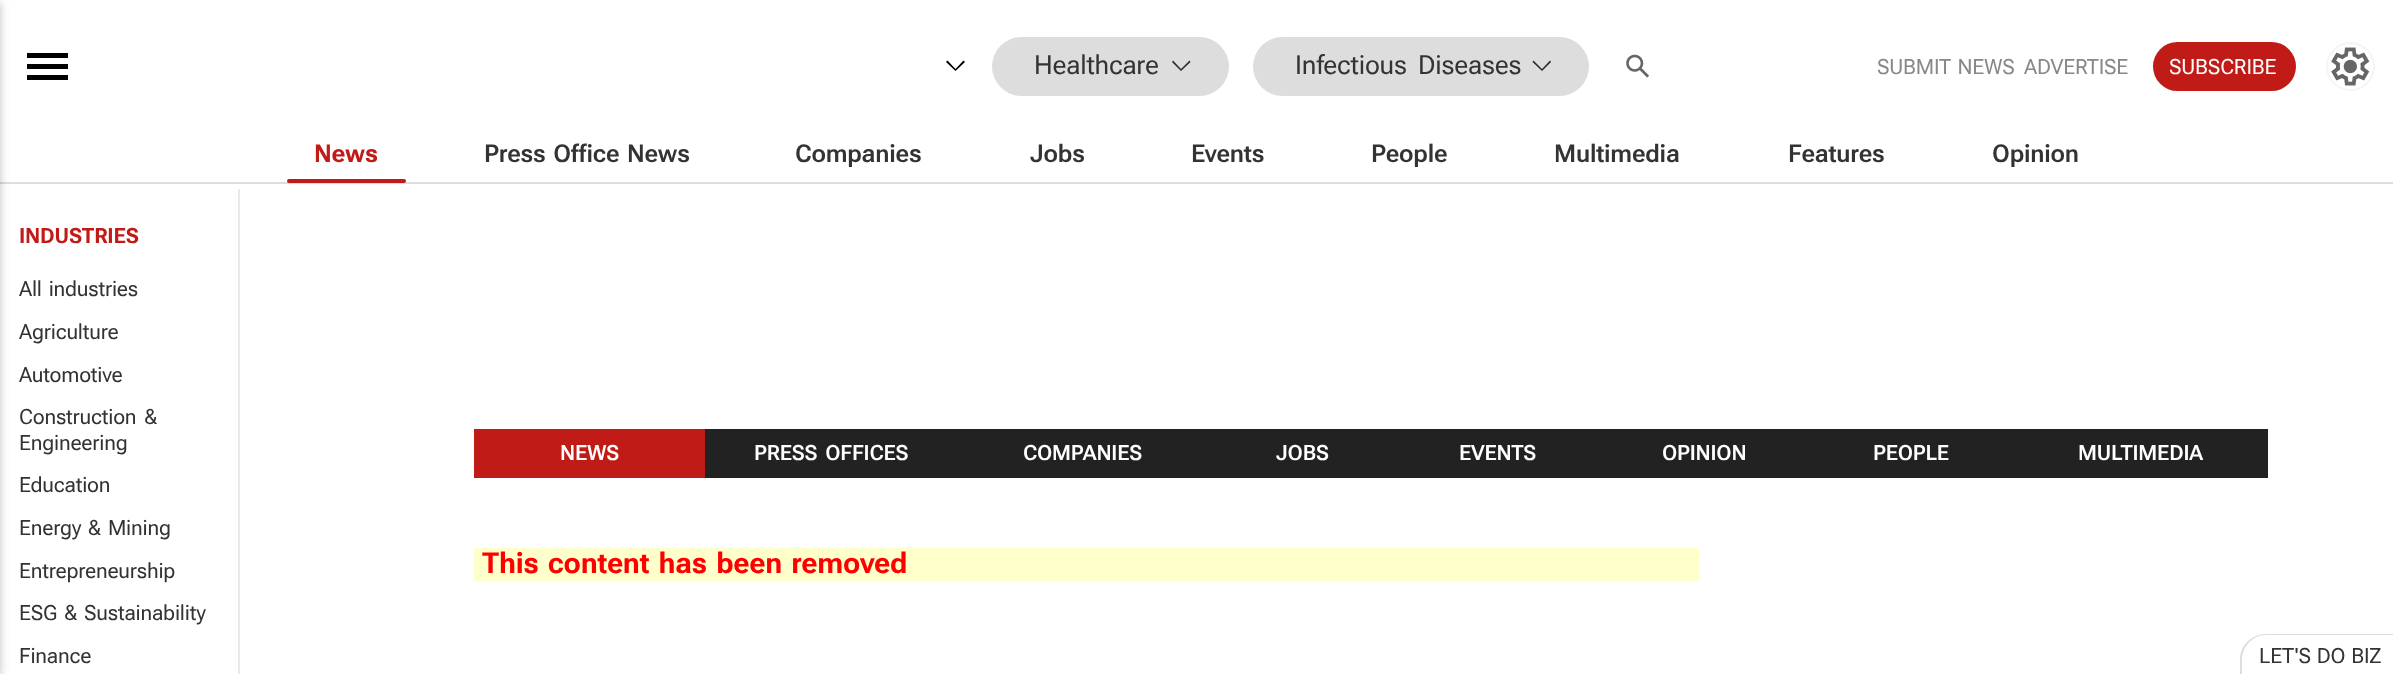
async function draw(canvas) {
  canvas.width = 2393;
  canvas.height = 674;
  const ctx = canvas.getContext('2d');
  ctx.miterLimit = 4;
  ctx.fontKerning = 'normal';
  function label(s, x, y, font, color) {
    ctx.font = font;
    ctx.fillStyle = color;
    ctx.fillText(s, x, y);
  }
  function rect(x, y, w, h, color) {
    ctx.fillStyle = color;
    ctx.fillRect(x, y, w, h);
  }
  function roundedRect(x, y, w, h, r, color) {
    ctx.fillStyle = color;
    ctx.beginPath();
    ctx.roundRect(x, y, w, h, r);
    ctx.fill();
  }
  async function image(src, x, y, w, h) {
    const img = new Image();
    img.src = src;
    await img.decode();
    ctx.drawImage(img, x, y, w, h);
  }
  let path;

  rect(0, 0, 2393, 674, '#fff');
  rect(0, 182, 2393, 2, '#ddd');
  ctx.fillStyle = '#20212447';
  ctx.filter = 'blur(5px)';
  ctx.beginPath();
  ctx.rect(-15, 2, 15, 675);
  ctx.fill();
  ctx.filter = 'none';
  ctx.fillStyle = '#000';
  path = new Path2D('M27 80V75H68V80ZM27 69V64H68V69ZM27 58V53H68V58Z');
  ctx.fill(path);
  path = new Path2D('M955.5 71L946 62L947.5 60.5L955.5 69L963.5 60.5L965 62Z');
  ctx.fill(path);
  roundedRect(992, 37, 237, 59, 29.5, '#ddd');
  ctx.letterSpacing = '-0.2px';
  label('Healthcare', 1034, 74, '26.25px Roboto Flex', '#333');
  ctx.fillStyle = '#2c2c2c';
  path = new Path2D('M1181 71L1172 62L1173 60.5L1181 69L1189.5 60.5L1190.5 62Z');
  ctx.fill(path);
  roundedRect(1253, 37, 336, 59, 29.5, '#ddd');
  ctx.wordSpacing = '5px';
  label('Infectious Diseases', 1295, 74, '26.25px Roboto Flex', '#333');
  ctx.fillStyle = '#2c2c2c';
  path = new Path2D('M1542 71L1532.5 62L1533.5 60.5L1542 69L1550 60.5L1551 62Z');
  ctx.fill(path);
  await image('assets/img1.png', 1626, 54, 23, 24);
  ctx.wordSpacing = '2px';
  label('SUBMIT NEWS', 1877, 74, '21px Roboto Flex', '#888');
  ctx.wordSpacing = '0px';
  label('ADVERTISE', 2024, 74, '21px Roboto Flex', '#888');
  roundedRect(2153, 42, 143, 49, 24.5, '#c11b17');
  label('SUBSCRIBE', 2169, 74, '21px Roboto Flex', '#fff');
  await image('assets/img2.png', 2331, 47, 39, 39);
  ctx.beginPath();
  ctx.arc(2350.5, 66.5, 23.5, 0, 2 * Math.PI);
  ctx.strokeStyle = '#f5f5f5';
  ctx.lineWidth = 2;
  ctx.stroke();
  label('News', 314, 162, 'bold 24.5px Roboto Flex', '#c11b17');
  roundedRect(287, 179, 119, 4, 2, '#c11b17');
  ctx.wordSpacing = '2px';
  label('Press Office News', 484, 162, '600 24.5px Roboto Flex', '#333');
  ctx.wordSpacing = '0px';
  label('Companies', 795, 162, '600 24.5px Roboto Flex', '#333');
  label('Jobs', 1030, 162, '600 24.5px Roboto Flex', '#333');
  label('Events', 1191, 162, '600 24.5px Roboto Flex', '#333');
  label('People', 1371, 162, '600 24.5px Roboto Flex', '#333');
  label('Multimedia', 1554, 162, '600 24.5px Roboto Flex', '#333');
  label('Features', 1788, 162, '600 24.5px Roboto Flex', '#333');
  label('Opinion', 1992, 162, '600 24.5px Roboto Flex', '#333');
  ctx.fillStyle = '#eaeaea';
  path = new Path2D('M0 189H240V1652C240 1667 227 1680 212 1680H0ZM0 189H238V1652C238 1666 226 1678 212 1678H0Z');
  ctx.fill(path, 'evenodd');
  label('INDUSTRIES', 19, 243, 'bold 21px Roboto Flex', '#c11b17');
  ctx.wordSpacing = '2px';
  label('All industries', 19, 296, '21px Roboto Flex', '#333');
  ctx.wordSpacing = '0px';
  label('Agriculture', 19, 339, '21px Roboto Flex', '#333');
  label('Automotive', 19, 382, '21px Roboto Flex', '#333');
  ctx.wordSpacing = '3px';
  label('Construction &', 19, 424, '21px Roboto Flex', '#333');
  ctx.wordSpacing = '0px';
  label('Engineering', 19, 450, '21px Roboto Flex', '#333');
  label('Education', 19, 492, '21px Roboto Flex', '#333');
  ctx.wordSpacing = '2px';
  label('Energy & Mining', 19, 535, '21px Roboto Flex', '#333');
  ctx.wordSpacing = '0px';
  label('Entrepreneurship', 19, 578, '21px Roboto Flex', '#333');
  ctx.wordSpacing = '2px';
  label('ESG & Sustainability', 19, 620, '21px Roboto Flex', '#333');
  ctx.wordSpacing = '0px';
  label('Finance', 19, 663, '21px Roboto Flex', '#333');
  rect(705, 429, 1563, 49, '#222');
  rect(474, 429, 231, 49, '#c11b17');
  label('NEWS', 560, 460, '600 21px Roboto Flex', '#fff');
  ctx.wordSpacing = '3px';
  label('PRESS OFFICES', 754, 460, '600 21px Roboto Flex', '#fff');
  ctx.wordSpacing = '0px';
  label('COMPANIES', 1023, 460, '600 21px Roboto Flex', '#fff');
  label('JOBS', 1276, 460, '600 21px Roboto Flex', '#fff');
  label('EVENTS', 1459, 460, '600 21px Roboto Flex', '#fff');
  label('OPINION', 1662, 460, '600 21px Roboto Flex', '#fff');
  label('PEOPLE', 1873, 460, '600 21px Roboto Flex', '#fff');
  label('MULTIMEDIA', 2078, 460, '600 21px Roboto Flex', '#fff');
  rect(474, 548, 1225, 33, '#ffc');
  ctx.wordSpacing = '2.5px';
  label('This content has been removed', 482, 573, 'bold 28.75px Roboto Flex', '#f00');
  ctx.fillStyle = '#ddd';
  path = new Path2D('M2266 634H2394V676H2240V660C2240 645 2252 634 2266 634ZM2266 635H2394V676H2242V660C2242 646 2253 635 2266 635Z');
  ctx.fill(path, 'evenodd');
  ctx.wordSpacing = '1px';
  label('LET\'S DO BIZ', 2259, 663, '21px Roboto Flex', '#333');
}

draw(document.querySelector('canvas'));
